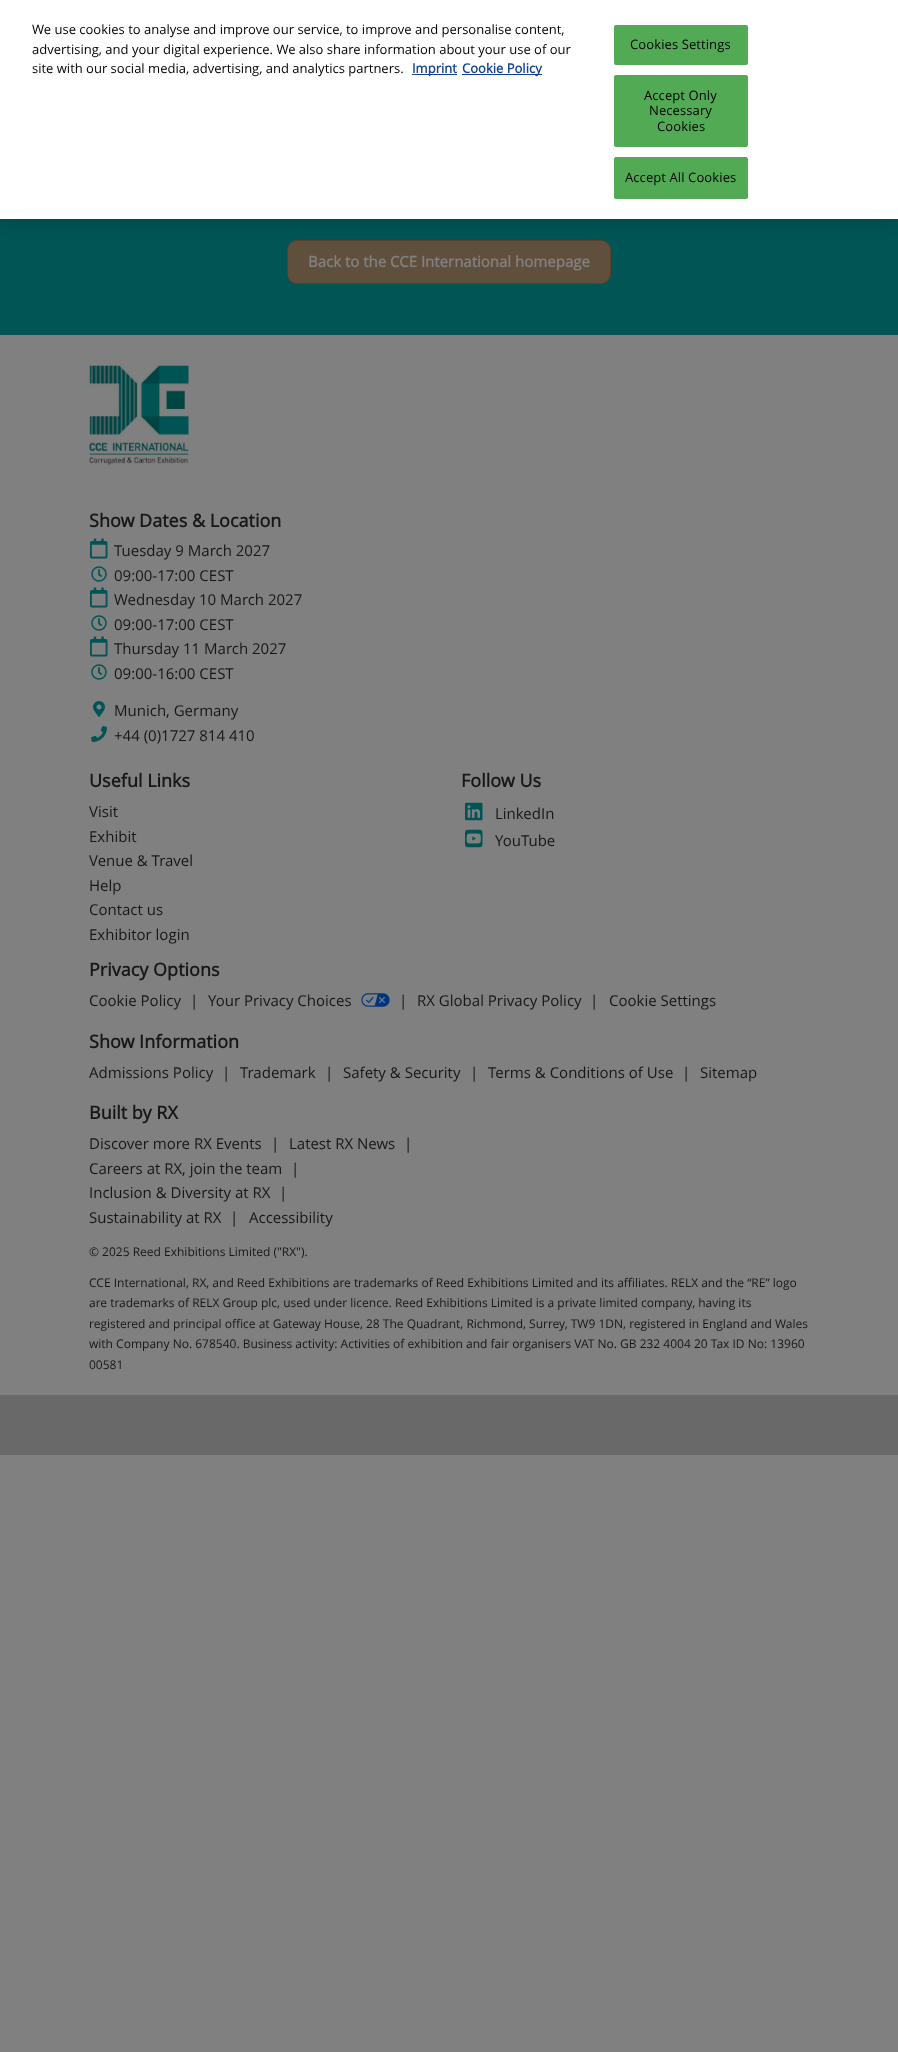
async function draw(canvas) {
  canvas.width = 898;
  canvas.height = 2052;
  const ctx = canvas.getContext('2d');
  ctx.miterLimit = 4;
  ctx.fontKerning = 'normal';
  function label(s, x, y, font, color) {
    ctx.font = font;
    ctx.fillStyle = color;
    ctx.fillText(s, x, y);
  }
  function rect(x, y, w, h, color) {
    ctx.fillStyle = color;
    ctx.fillRect(x, y, w, h);
  }
  function roundedRect(x, y, w, h, r, color) {
    ctx.fillStyle = color;
    ctx.beginPath();
    ctx.roundRect(x, y, w, h, r);
    ctx.fill();
  }
  async function image(src, x, y, w, h) {
    const img = new Image();
    img.src = src;
    await img.decode();
    ctx.drawImage(img, x, y, w, h);
  }

  rect(0, 0, 898, 2052, '#808080');
  rect(0, 219, 898, 116, '#015554');
  ctx.fillStyle = '#614f3e';
  ctx.beginPath();
  ctx.roundRect(287.5, 240.5, 323, 43, 9.5);
  ctx.fill();
  ctx.strokeStyle = '#59422d';
  ctx.stroke();
  ctx.fillStyle = '#00000033';
  ctx.filter = 'blur(9px)';
  ctx.beginPath();
  ctx.rect(0, 0, 898, 219);
  ctx.fill();
  ctx.filter = 'none';
  rect(0, 0, 898, 219, '#fff');
  label('We use cookies to analyse and improve our service, to improve and personalise content,', 32, 34, '13px Open Sans', '#000');
  label('advertising, and your digital experience. We also share information about your use of our', 32, 54, '13px Open Sans', '#000');
  label('site with our social media, advertising, and analytics partners.', 32, 73, '13px Open Sans', '#000');
  rect(412, 74, 45, 1, '#104593');
  label('Imprint', 412, 73, 'bold 13px Open Sans', '#104593');
  rect(462, 74, 80, 1, '#104593');
  label('Cookie Policy', 462, 73, 'bold 13px Open Sans', '#104593');
  roundedRect(614, 25, 134, 40, 2, '#52aa55');
  ctx.letterSpacing = '0.1px';
  label('Cookies Settings', 630, 49, '13px Open Sans', '#000');
  ctx.fillStyle = '#52aa55';
  ctx.beginPath();
  ctx.roundRect(614.5, 75.5, 133, 71, 1.5);
  ctx.fill();
  ctx.strokeStyle = '#52aa55';
  ctx.stroke();
  label('Accept Only', 644, 100, '13px Open Sans', '#000');
  label('Necessary', 649, 115, '13px Open Sans', '#000');
  label('Cookies', 657, 131, '13px Open Sans', '#000');
  ctx.fillStyle = '#52aa55';
  ctx.beginPath();
  ctx.roundRect(614.5, 157.5, 133, 41, 1.5);
  ctx.fill();
  ctx.stroke();
  label('Accept All Cookies', 625, 182, '13px Open Sans', '#000');
  ctx.letterSpacing = '0px';
  label('Back to the CCE International homepage', 308, 267, 'bold 15px Open Sans', '#808080');
  await image('assets/img1.png', 89, 365, 100, 100);
  label('Show Dates & Location', 89, 527, 'bold 18px Open Sans', '#171717');
  await image('assets/img2.png', 90, 538, 18, 21);
  label('Tuesday 9 March 2027', 114, 556, '15px Open Sans', '#171717');
  await image('assets/img3.png', 91, 566, 16, 16);
  label('09:00-17:00 CEST', 114, 581, '15px Open Sans', '#171717');
  await image('assets/img2.png', 90, 587, 18, 21);
  label('Wednesday 10 March 2027', 114, 605, '15px Open Sans', '#171717');
  await image('assets/img3.png', 91, 615, 16, 16);
  label('09:00-17:00 CEST', 114, 630, '15px Open Sans', '#171717');
  await image('assets/img2.png', 90, 636, 18, 21);
  label('Thursday 11 March 2027', 114, 654, '15px Open Sans', '#171717');
  await image('assets/img3.png', 91, 664, 16, 16);
  label('09:00-16:00 CEST', 114, 679, '15px Open Sans', '#171717');
  await image('assets/img4.png', 93, 701, 12, 16);
  label('Munich, Germany', 114, 716, '15px Open Sans', '#171717');
  await image('assets/img5.png', 91, 726, 16, 16);
  label('+44 (0)1727 814 410', 114, 741, '15px Open Sans', '#171717');
  label('Useful Links', 89, 787, 'bold 18px Open Sans', '#171717');
  label('Visit', 89, 817, '15px Open Sans', '#171717');
  label('Exhibit', 89, 842, '15px Open Sans', '#171717');
  label('Venue & Travel', 89, 866, '15px Open Sans', '#171717');
  label('Help', 89, 891, '15px Open Sans', '#171717');
  label('Contact us', 89, 915, '15px Open Sans', '#171717');
  label('Exhibitor login', 89, 940, '15px Open Sans', '#171717');
  label('Follow Us', 461, 787, 'bold 18px Open Sans', '#171717');
  await image('assets/img6.png', 465, 802, 18, 19);
  label('LinkedIn', 495, 819, '15px Open Sans', '#171717');
  await image('assets/img7.png', 465, 829, 18, 19);
  label('YouTube', 495, 846, '15px Open Sans', '#171717');
  label('Privacy Options', 89, 976, 'bold 18px Open Sans', '#171717');
  label('Cookie Policy', 89, 1006, '15px Open Sans', '#171717');
  label('|', 190, 1006, '15px Open Sans', '#171717');
  label('Your Privacy Choices', 208, 1006, '15px Open Sans', '#171717');
  await image('assets/img8.png', 361, 993, 29, 14);
  label('|', 399, 1006, '15px Open Sans', '#171717');
  label('RX Global Privacy Policy', 417, 1006, '15px Open Sans', '#171717');
  label('|', 590, 1006, '15px Open Sans', '#171717');
  label('Cookie Settings', 609, 1006, '15px Open Sans', '#171717');
  label('Show Information', 89, 1048, 'bold 18px Open Sans', '#171717');
  label('Admissions Policy', 89, 1078, '15px Open Sans', '#171717');
  label('|', 222, 1078, '15px Open Sans', '#171717');
  label('Trademark', 240, 1078, '15px Open Sans', '#171717');
  label('|', 325, 1078, '15px Open Sans', '#171717');
  label('Safety & Security', 343, 1078, '15px Open Sans', '#171717');
  label('|', 470, 1078, '15px Open Sans', '#171717');
  label('Terms & Conditions of Use', 488, 1078, '15px Open Sans', '#171717');
  label('|', 682, 1078, '15px Open Sans', '#171717');
  label('Sitemap', 700, 1078, '15px Open Sans', '#171717');
  label('Built by RX', 89, 1119, 'bold 18px Open Sans', '#171717');
  label('Discover more RX Events', 89, 1149, '15px Open Sans', '#171717');
  label('|', 271, 1149, '15px Open Sans', '#171717');
  label('Latest RX News', 289, 1149, '15px Open Sans', '#171717');
  label('|', 404, 1149, '15px Open Sans', '#171717');
  label('Careers at RX, join the team', 89, 1174, '15px Open Sans', '#171717');
  label('|', 291, 1174, '15px Open Sans', '#171717');
  label('Inclusion & Diversity at RX', 89, 1198, '15px Open Sans', '#171717');
  label('|', 279, 1198, '15px Open Sans', '#171717');
  label('Sustainability at RX', 89, 1223, '15px Open Sans', '#171717');
  label('|', 230, 1223, '15px Open Sans', '#171717');
  label('Accessibility', 249, 1223, '15px Open Sans', '#171717');
  label('© 2025 Reed Exhibitions Limited ("RX").', 89, 1256, '12px Open Sans', '#171717');
  label('CCE International, RX, and Reed Exhibitions are trademarks of Reed Exhibitions Limited and its affiliates. RELX and the “RE” logo', 89, 1287, '12px Open Sans', '#171717');
  label('are trademarks of RELX Group plc, used under licence. Reed Exhibitions Limited is a private limited company, having its', 89, 1307, '12px Open Sans', '#171717');
  label('registered and principal office at Gateway House, 28 The Quadrant, Richmond, Surrey, TW9 1DN, registered in England and Wales', 89, 1328, '12px Open Sans', '#171717');
  label('with Company No. 678540. Business activity: Activities of exhibition and fair organisers VAT No. GB 232 4004 20 Tax ID No: 13960', 89, 1348, '12px Open Sans', '#171717');
  label('00581', 89, 1369, '12px Open Sans', '#171717');
  rect(0, 1396, 898, 59, '#696969');
  rect(0, 1395, 898, 1, '#6a6a6a');
}

draw(document.querySelector('canvas'));
